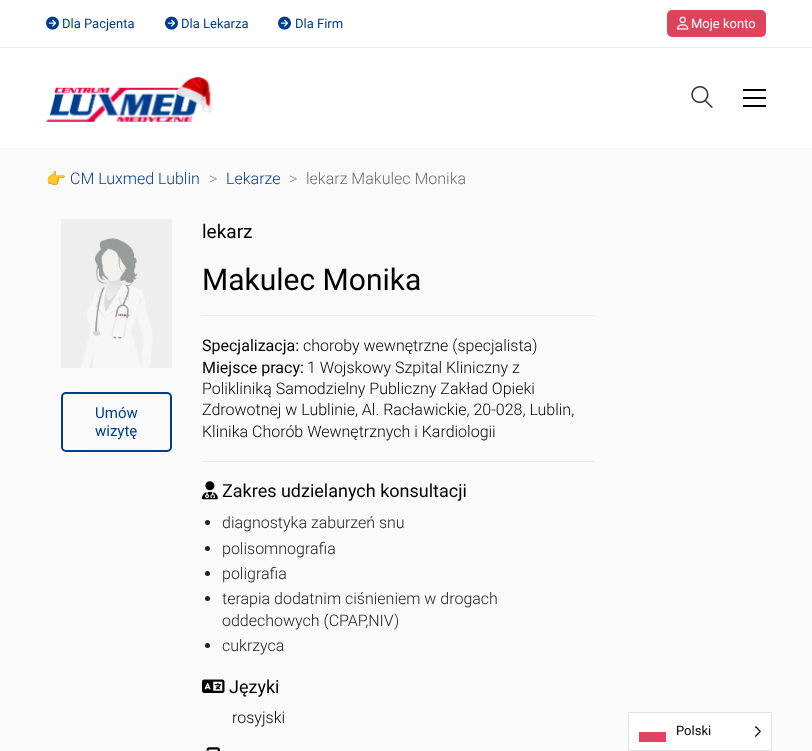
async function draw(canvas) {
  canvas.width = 812;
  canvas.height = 751;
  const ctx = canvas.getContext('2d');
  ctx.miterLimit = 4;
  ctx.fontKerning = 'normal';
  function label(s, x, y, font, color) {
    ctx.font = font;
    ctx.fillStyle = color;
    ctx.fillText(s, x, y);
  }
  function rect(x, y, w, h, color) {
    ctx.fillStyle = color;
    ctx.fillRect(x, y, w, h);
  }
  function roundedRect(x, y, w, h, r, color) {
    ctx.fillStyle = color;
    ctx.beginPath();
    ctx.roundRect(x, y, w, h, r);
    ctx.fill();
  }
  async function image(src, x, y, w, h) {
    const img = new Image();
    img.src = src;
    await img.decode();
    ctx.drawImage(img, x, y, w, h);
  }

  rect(0, 0, 812, 751, '#fafafa');
  rect(0, 0, 812, 148, '#fff');
  rect(0, 47, 812, 1, '#e6ebef');
  await image('assets/img1.png', 46, 16, 13, 14);
  label('Dla Pacjenta', 62, 28, '13px Roboto', '#003d8f');
  await image('assets/img1.png', 165, 16, 13, 14);
  label('Dla Lekarza', 181, 28, '13px Roboto', '#003d8f');
  await image('assets/img1.png', 278, 16, 13, 14);
  label('Dla Firm', 295, 28, '13px Roboto', '#003d8f');
  roundedRect(667, 10, 99, 27, 5, '#dc445b');
  await image('assets/img2.png', 677, 16, 12, 14);
  label('Moje konto', 691, 28, '13px Roboto', '#fff');
  await image('assets/img3.png', 46, 77, 167, 45);
  await image('assets/img4.png', 691, 86, 22, 22);
  rect(743, 89, 23, 2, '#000');
  rect(743, 97, 23, 2, '#000');
  rect(743, 105, 23, 2, '#000');
  label('👉', 46, 184, '16px Noto Color Emoji', '#003d8f');
  label('CM Luxmed Lublin', 70, 184, '300 16px Roboto', '#003d8f');
  label('>', 209, 184, '300 16px Roboto', '#888');
  label('Lekarze', 226, 184, '300 16px Roboto', '#003d8f');
  label('>', 289, 184, '300 16px Roboto', '#888');
  label('lekarz Makulec Monika', 306, 184, '300 16px Roboto', '#6d6d6d');
  await image('assets/img5.png', 61, 219, 111, 149);
  ctx.beginPath();
  ctx.roundRect(62, 393, 109, 58, 4);
  ctx.strokeStyle = '#003d8f';
  ctx.lineWidth = 2;
  ctx.stroke();
  label('Umów', 95, 418, '15px Roboto', '#003d8f');
  label('wizytę', 95, 436, '15px Roboto', '#003d8f');
  label('lekarz', 202, 238, '19px Roboto', '#000');
  label('Makulec Monika', 202, 290, '30px Roboto', '#000');
  rect(202, 315, 392, 1, '#eee');
  label('Specjalizacja:', 202, 351, '16px Roboto', '#000');
  label('choroby wewnętrzne (specjalista)', 303, 351, '300 16px Roboto', '#000');
  label('Miejsce pracy:', 202, 373, '16px Roboto', '#000');
  label('1 Wojskowy Szpital Kliniczny z', 307, 373, '300 16px Roboto', '#000');
  label('Polikliniką Samodzielny Publiczny Zakład Opieki', 202, 394, '300 16px Roboto', '#000');
  label('Zdrowotnej w Lublinie, Al. Racławickie, 20-028, Lublin,', 202, 415, '300 16px Roboto', '#000');
  label('Klinika Chorób Wewnętrznych i Kardiologii', 202, 437, '300 16px Roboto', '#000');
  rect(202, 461, 392, 1, '#eee');
  await image('assets/img6.png', 202, 481, 16, 19);
  label('Zakres udzielanych konsultacji', 222, 497, '18px Roboto', '#000');
  ctx.fillStyle = '#222121';
  ctx.beginPath();
  ctx.arc(207.5, 522.5, 2.5, 0, 2 * Math.PI);
  ctx.fill();
  label('diagnostyka zaburzeń snu', 222, 528, '300 16px Roboto', '#222121');
  ctx.beginPath();
  ctx.arc(207.5, 548.5, 2.5, 0, 2 * Math.PI);
  ctx.fill();
  label('polisomnografia', 222, 554, '300 16px Roboto', '#222121');
  ctx.beginPath();
  ctx.arc(207.5, 573.5, 2.5, 0, 2 * Math.PI);
  ctx.fill();
  label('poligrafia', 222, 579, '300 16px Roboto', '#222121');
  ctx.beginPath();
  ctx.arc(207.5, 598.5, 2.5, 0, 2 * Math.PI);
  ctx.fill();
  label('terapia dodatnim ciśnieniem w drogach', 222, 604, '300 16px Roboto', '#222121');
  label('oddechowych (CPAP,NIV)', 222, 626, '300 16px Roboto', '#222121');
  ctx.beginPath();
  ctx.arc(207.5, 645.5, 2.5, 0, 2 * Math.PI);
  ctx.fill();
  label('cukrzyca', 222, 651, '300 16px Roboto', '#222121');
  await image('assets/img7.png', 202, 679, 23, 14);
  label('Języki', 229, 693, '18px Roboto', '#000');
  label('rosyjski', 232, 723, '300 16px Roboto', '#000');
  await image('assets/img8.png', 206, 747, 14, 4);
  ctx.fillStyle = '#fff';
  ctx.beginPath();
  ctx.rect(628.5, 712.5, 143, 38);
  ctx.fill();
  ctx.strokeStyle = '#e0e0e0';
  ctx.lineWidth = 1;
  ctx.stroke();
  label('Polski', 676, 735, '13px Roboto', '#000');
  rect(639, 732, 27, 10, '#e34363');
  await image('assets/img9.png', 755, 726, 6, 11);
}

draw(document.querySelector('canvas'));
